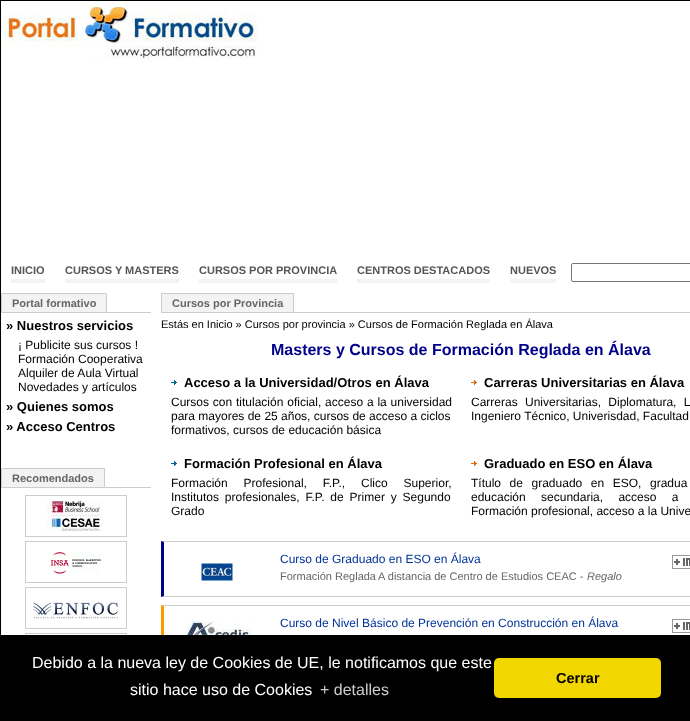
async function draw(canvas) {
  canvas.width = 690;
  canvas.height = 721;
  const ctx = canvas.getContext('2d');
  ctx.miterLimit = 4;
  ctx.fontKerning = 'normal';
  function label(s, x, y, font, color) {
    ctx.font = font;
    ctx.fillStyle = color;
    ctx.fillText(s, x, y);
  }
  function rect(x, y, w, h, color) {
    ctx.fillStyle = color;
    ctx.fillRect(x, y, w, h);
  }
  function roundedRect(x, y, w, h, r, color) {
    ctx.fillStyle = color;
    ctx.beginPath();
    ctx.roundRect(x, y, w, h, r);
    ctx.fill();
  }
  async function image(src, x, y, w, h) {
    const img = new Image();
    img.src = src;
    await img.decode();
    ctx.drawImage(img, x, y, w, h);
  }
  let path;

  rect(0, 0, 690, 721, '#fff');
  ctx.strokeStyle = '#000';
  ctx.strokeRect(0.5, 0.5, 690, 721);
  await image('assets/img1.png', 1, 1, 256, 60);
  rect(11, 279, 34, 4, '#f3f3f3');
  label('INICIO', 11, 274, 'bold 11px Liberation Sans', '#555');
  rect(65, 279, 114, 4, '#f3f3f3');
  label('CURSOS Y MASTERS', 65, 274, 'bold 11px Liberation Sans', '#555');
  rect(199, 279, 138, 4, '#f3f3f3');
  label('CURSOS POR PROVINCIA', 199, 274, 'bold 11px Liberation Sans', '#555');
  rect(357, 279, 133, 4, '#f3f3f3');
  label('CENTROS DESTACADOS', 357, 274, 'bold 11px Liberation Sans', '#555');
  rect(510, 279, 46, 4, '#f3f3f3');
  label('NUEVOS', 510, 274, 'bold 11px Liberation Sans', '#555');
  ctx.beginPath();
  ctx.roundRect(571.5, 263.5, 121, 18, 1.5);
  ctx.strokeStyle = '#767676';
  ctx.stroke();
  rect(107, 312, 44, 1, '#ccc');
  ctx.fillStyle = '#f3f3f3';
  ctx.beginPath();
  ctx.rect(1.5, 293.5, 105, 19);
  ctx.fill();
  ctx.strokeStyle = '#ccc';
  ctx.stroke();
  label('Portal formativo', 12, 307, 'bold 11px Liberation Sans', '#666');
  label('» Nuestros servicios', 6, 330, 'bold 13px Liberation Sans', '#000');
  label('¡ Publicite sus cursos !', 18, 349, '12px Liberation Sans', '#000');
  label('Formación Cooperativa', 18, 363, '12px Liberation Sans', '#000');
  label('Alquiler de Aula Virtual', 18, 377, '12px Liberation Sans', '#000');
  label('Novedades y artículos', 18, 391, '12px Liberation Sans', '#000');
  label('» Quienes somos', 6, 411, 'bold 13px Liberation Sans', '#000');
  label('» Acceso Centros', 6, 431, 'bold 13px Liberation Sans', '#000');
  rect(105, 487, 46, 1, '#ccc');
  ctx.fillStyle = '#f3f3f3';
  ctx.beginPath();
  ctx.rect(1.5, 468.5, 103, 19);
  ctx.fill();
  ctx.stroke();
  label('Recomendados', 12, 482, 'bold 11px Liberation Sans', '#666');
  ctx.strokeRect(25.5, 495.5, 101, 41);
  await image('assets/img2.png', 46, 501, 57, 30);
  ctx.strokeRect(25.5, 541.5, 101, 41);
  await image('assets/img3.png', 51, 552, 50, 22);
  ctx.strokeRect(25.5, 587.5, 101, 41);
  await image('assets/img4.png', 33, 602, 85, 17);
  ctx.strokeRect(25.5, 633.5, 101, 41);
  rect(294, 312, 396, 1, '#ccc');
  ctx.fillStyle = '#f3f3f3';
  ctx.beginPath();
  ctx.rect(161.5, 293.5, 132, 19);
  ctx.fill();
  ctx.stroke();
  label('Cursos por Provincia', 172, 307, 'bold 11px Liberation Sans', '#666');
  label('Estás en Inicio » Cursos por provincia » Cursos de Formación Reglada en Álava', 161, 328, '11px Liberation Sans', '#000');
  label('Masters y Cursos de Formación Reglada en Álava', 271, 355, 'bold 16px Liberation Sans', '#00008b');
  await image('assets/img5.png', 171, 380, 6, 5);
  label('Acceso a la Universidad/Otros en Álava', 184, 387, 'bold 13px Liberation Sans', '#000');
  ctx.wordSpacing = '0.5px';
  label('Cursos con titulación oficial, acceso a la universidad', 171, 406, '12px Liberation Sans', '#000');
  ctx.wordSpacing = '0px';
  label('para mayores de 25 años, cursos de acceso a ciclos', 171, 420, '12px Liberation Sans', '#000');
  label('formativos, cursos de educación básica', 171, 434, '12px Liberation Sans', '#000');
  await image('assets/img6.png', 471, 380, 6, 5);
  label('Carreras Universitarias en Álava', 484, 387, 'bold 13px Liberation Sans', '#000');
  ctx.wordSpacing = '4px';
  label('Carreras Universitarias, Diplomatura, L', 471, 406, '12px Liberation Sans', '#000');
  ctx.wordSpacing = '0px';
  label('Ingeniero Técnico, Univerisdad, Facultad', 471, 420, '12px Liberation Sans', '#000');
  await image('assets/img5.png', 171, 461, 6, 5);
  label('Formación Profesional en Álava', 184, 468, 'bold 13px Liberation Sans', '#000');
  ctx.wordSpacing = '12.5px';
  label('Formación Profesional, F.P., Clico Superior,', 171, 487, '12px Liberation Sans', '#000');
  ctx.wordSpacing = '2.5px';
  label('Institutos profesionales, F.P. de Primer y Segundo', 171, 501, '12px Liberation Sans', '#000');
  ctx.wordSpacing = '0px';
  label('Grado', 171, 515, '12px Liberation Sans', '#000');
  await image('assets/img6.png', 471, 461, 6, 5);
  label('Graduado en ESO en Álava', 484, 468, 'bold 13px Liberation Sans', '#000');
  ctx.wordSpacing = '5.25px';
  label('Título de graduado en ESO, gradua', 471, 487, '12px Liberation Sans', '#000');
  ctx.wordSpacing = '12px';
  label('educación secundaria, acceso a', 471, 501, '12px Liberation Sans', '#000');
  ctx.wordSpacing = '0px';
  label('Formación profesional, acceso a la Unive', 471, 515, '12px Liberation Sans', '#000');
  ctx.fillStyle = '#ccc';
  path = new Path2D('M161 541H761L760 542H164Z');
  ctx.fill(path);
  path = new Path2D('M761 597H161L164 596H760Z');
  ctx.fill(path);
  ctx.fillStyle = '#008';
  path = new Path2D('M161 597V541L164 542V596Z');
  ctx.fill(path);
  await image('assets/img7.png', 201, 563, 32, 18);
  label('Curso de Graduado en ESO en Álava', 280, 563, '12px Liberation Sans', '#039');
  await image('assets/img8.png', 672, 555, 18, 14);
  label('Formación Reglada', 280, 580, '11px Liberation Sans', '#666');
  label('A distancia de Centro de Estudios CEAC -', 378, 580, '11px Liberation Sans', '#666');
  label('Regalo', 587, 580, 'italic 11px Liberation Sans', '#666');
  ctx.fillStyle = '#ccc';
  path = new Path2D('M161 605H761L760 606H164Z');
  ctx.fill(path);
  ctx.fillStyle = '#f90';
  path = new Path2D('M161 676V605L164 606V675Z');
  ctx.fill(path);
  await image('assets/img9.png', 172, 621, 81, 14);
  label('Curso de Nivel Básico de Prevención en Construcción en Álava', 280, 627, '12px Liberation Sans', '#039');
  await image('assets/img8.png', 672, 619, 18, 14);
  rect(1, 635, 689, 86, '#000');
  label('Debido a la nueva ley de Cookies de UE, le notificamos que este', 32, 668, '16px Liberation Sans', '#fff');
  label('sitio hace uso de Cookies', 130, 695, '16px Liberation Sans', '#fff');
  label('+ detalles', 320, 695, '16px Liberation Sans', '#ccc');
  roundedRect(494, 658, 167, 40, 5, '#f1d600');
  label('Cerrar', 556, 683, 'bold 14.5px Liberation Sans', '#000');
}

draw(document.querySelector('canvas'));
